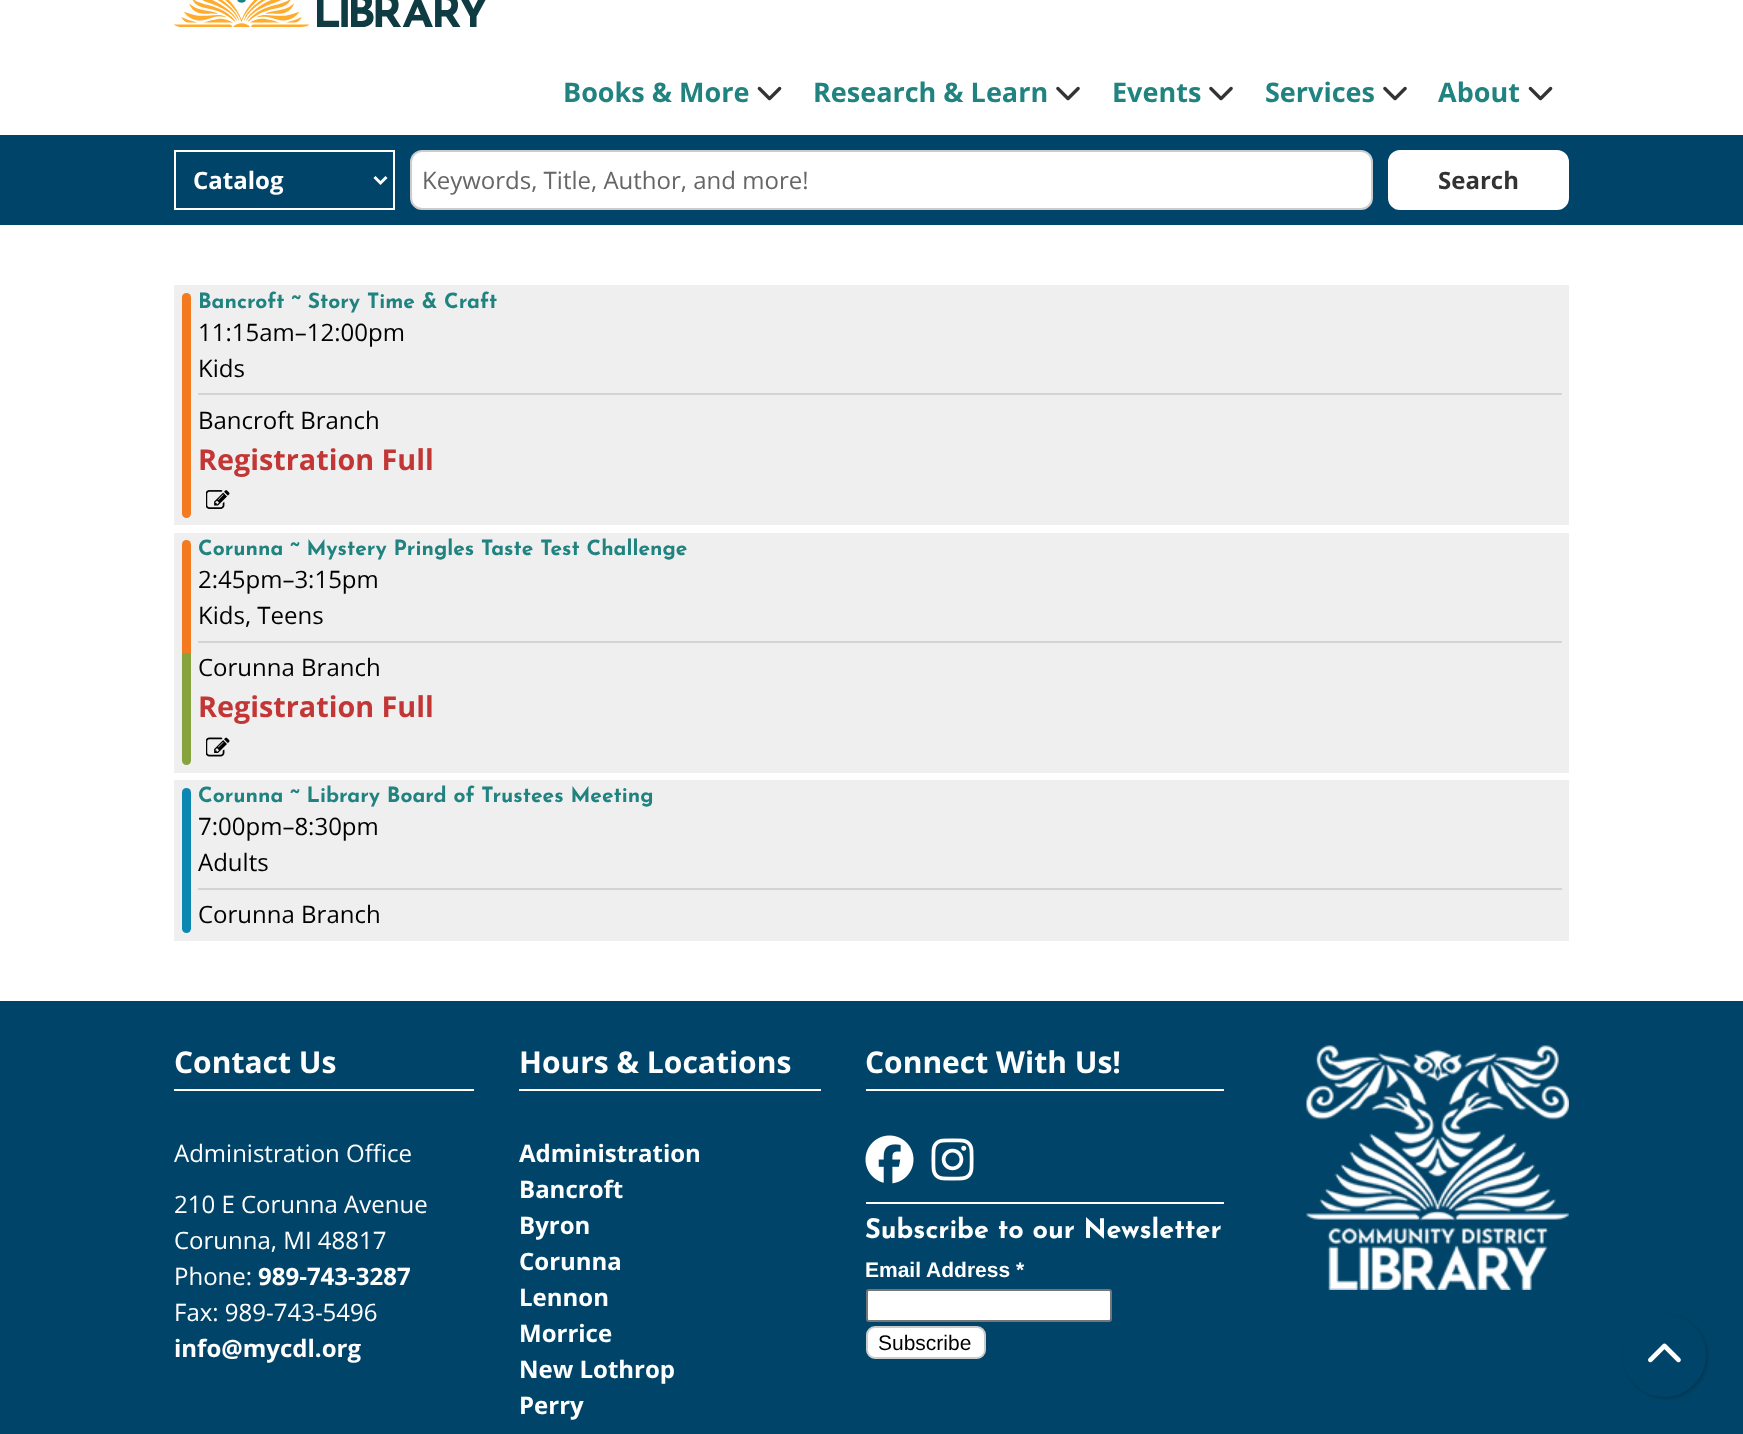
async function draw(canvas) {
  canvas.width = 1743;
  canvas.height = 1434;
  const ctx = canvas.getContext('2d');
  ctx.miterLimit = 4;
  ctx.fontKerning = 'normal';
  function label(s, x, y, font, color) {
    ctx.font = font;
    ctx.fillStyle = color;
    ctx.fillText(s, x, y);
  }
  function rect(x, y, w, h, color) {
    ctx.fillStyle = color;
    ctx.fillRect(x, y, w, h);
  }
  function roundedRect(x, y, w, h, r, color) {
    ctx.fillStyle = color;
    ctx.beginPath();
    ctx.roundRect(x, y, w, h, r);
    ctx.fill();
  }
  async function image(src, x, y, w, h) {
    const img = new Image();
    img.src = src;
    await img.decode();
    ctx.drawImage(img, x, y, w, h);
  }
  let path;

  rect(0, 0, 1743, 1434, '#fff');
  await image('assets/img1.png', 174, 0, 312, 27);
  label('Books & More', 563, 102, 'bold 27px Open Sans', '#208380');
  await image('assets/img2.png', 757, 86, 25, 15);
  label('Research & Learn', 813, 102, 'bold 27px Open Sans', '#208380');
  await image('assets/img3.png', 1056, 86, 24, 15);
  label('Events', 1112, 102, 'bold 27px Open Sans', '#208380');
  await image('assets/img3.png', 1209, 86, 24, 15);
  label('Services', 1265, 102, 'bold 27px Open Sans', '#208380');
  await image('assets/img3.png', 1383, 86, 24, 15);
  label('About', 1438, 102, 'bold 27px Open Sans', '#208380');
  await image('assets/img2.png', 1528, 86, 25, 15);
  rect(0, 135, 1743, 90, '#004569');
  ctx.strokeStyle = '#fff';
  ctx.lineWidth = 2;
  ctx.strokeRect(175, 151, 219, 58);
  path = new Path2D('M374.5 177L380.5 183L386.5 177');
  ctx.lineWidth = 3;
  ctx.stroke(path);
  label('Catalog', 193, 189, 'bold 24px Open Sans', '#fff');
  ctx.beginPath();
  ctx.roundRect(411, 151, 961, 58, 11);
  ctx.fill();
  ctx.strokeStyle = '#ccc';
  ctx.lineWidth = 2;
  ctx.stroke();
  label('Keywords, Title, Author, and more!', 422, 189, '24px Open Sans', '#666');
  ctx.fillStyle = '#fff';
  ctx.beginPath();
  ctx.roundRect(1389, 151, 179, 58, 11);
  ctx.fill();
  ctx.strokeStyle = '#fff';
  ctx.stroke();
  label('Search', 1438, 189, 'bold 24px Open Sans', '#333');
  rect(174, 285, 1395, 240, '#efefef');
  roundedRect(182, 293, 9, 225, 4.5, '#f47a20');
  label('Bancroft ~ Story Time & Craft', 198, 308, '100 21px Josefin Sans', '#208380');
  label('11:15am–12:00pm', 198, 341, '24px Open Sans', '#000');
  label('Kids', 198, 377, '24px Open Sans', '#000');
  rect(198, 393, 1364, 2, '#d2d3d5');
  label('Bancroft Branch', 198, 429, '24px Open Sans', '#000');
  label('Registration Full', 198, 470, 'bold 28.75px Open Sans', '#c23736');
  await image('assets/img4.png', 206, 490, 24, 19);
  rect(174, 533, 1395, 240, '#efefef');
  ctx.fillStyle = '#f47a20';
  ctx.beginPath();
  ctx.roundRect(182, 540, 9, 113, [4.5, 4.5, 0, 0]);
  ctx.fill();
  ctx.fillStyle = '#86a33d';
  ctx.beginPath();
  ctx.roundRect(182, 653, 9, 112, [0, 0, 4.5, 4.5]);
  ctx.fill();
  label('Corunna ~ Mystery Pringles Taste Test Challenge', 198, 555, '100 21px Josefin Sans', '#208380');
  label('2:45pm–3:15pm', 198, 588, '24px Open Sans', '#000');
  label('Kids, Teens', 198, 624, '24px Open Sans', '#000');
  rect(198, 641, 1364, 2, '#d2d3d5');
  label('Corunna Branch', 198, 676, '24px Open Sans', '#000');
  label('Registration Full', 198, 717, 'bold 28.75px Open Sans', '#c23736');
  await image('assets/img5.png', 206, 737, 24, 20);
  rect(174, 780, 1395, 161, '#efefef');
  roundedRect(182, 788, 9, 145, 4.5, '#0b87b2');
  label('Corunna ~ Library Board of Trustees Meeting', 198, 802, '100 21px Josefin Sans', '#208380');
  label('7:00pm–8:30pm', 198, 835, '24px Open Sans', '#000');
  label('Adults', 198, 871, '24px Open Sans', '#000');
  rect(198, 888, 1364, 2, '#d2d3d5');
  label('Corunna Branch', 198, 923, '24px Open Sans', '#000');
  rect(0, 1001, 1743, 433, '#004569');
  rect(174, 1089, 300, 2, '#fff');
  label('Contact Us', 174, 1073, 'bold 30px Open Sans', '#fff');
  label('Administration Office', 174, 1162, '24px Open Sans', '#fff');
  label('210 E Corunna Avenue', 174, 1213, '24px Open Sans', '#fff');
  label('Corunna, MI 48817', 174, 1249, '24px Open Sans', '#fff');
  label('Phone:', 174, 1285, '24px Open Sans', '#fff');
  label('989-743-3287', 258, 1285, 'bold 24px Open Sans', '#fff');
  label('Fax: 989-743-5496', 174, 1321, '24px Open Sans', '#fff');
  label('info@mycdl.org', 174, 1357, 'bold 24px Open Sans', '#fff');
  rect(519, 1089, 302, 2, '#fff');
  label('Hours & Locations', 519, 1073, 'bold 30px Open Sans', '#fff');
  label('Administration', 519, 1162, 'bold 24px Open Sans', '#fff');
  label('Bancroft', 519, 1198, 'bold 24px Open Sans', '#fff');
  label('Byron', 519, 1234, 'bold 24px Open Sans', '#fff');
  label('Corunna', 519, 1270, 'bold 24px Open Sans', '#fff');
  label('Lennon', 519, 1306, 'bold 24px Open Sans', '#fff');
  label('Morrice', 519, 1342, 'bold 24px Open Sans', '#fff');
  label('New Lothrop', 519, 1378, 'bold 24px Open Sans', '#fff');
  label('Perry', 519, 1414, 'bold 24px Open Sans', '#fff');
  rect(866, 1089, 358, 2, '#fff');
  label('Connect With Us!', 865, 1073, 'bold 30px Open Sans', '#fff');
  await image('assets/img6.png', 865, 1135, 49, 49);
  await image('assets/img7.png', 931, 1138, 43, 43);
  rect(866, 1202, 358, 2, '#fff');
  label('Subscribe to our Newsletter', 865, 1238, '100 27px Josefin Sans', '#fff');
  label('Email Address *', 865, 1277, 'bold 21px Liberation Sans', '#fff');
  ctx.beginPath();
  ctx.roundRect(867, 1290, 244, 31, 2);
  ctx.fill();
  ctx.strokeStyle = '#767676';
  ctx.stroke();
  ctx.beginPath();
  ctx.roundRect(867, 1327, 118, 31, 8);
  ctx.fill();
  ctx.strokeStyle = '#ccc';
  ctx.stroke();
  label('Subscribe', 878, 1350, '21px Liberation Sans', '#000');
  await image('assets/img8.png', 1306, 1045, 263, 245);
  ctx.fillStyle = '#00000040';
  ctx.filter = 'blur(2px)';
  ctx.beginPath();
  ctx.roundRect(1625, 1316, 82, 82, 41);
  ctx.fill();
  ctx.filter = 'none';
  ctx.fillStyle = '#004569';
  ctx.beginPath();
  ctx.arc(1664.5, 1355.5, 40.5, 0, 2 * Math.PI);
  ctx.fill();
  ctx.strokeStyle = '#004569';
  ctx.stroke();
  await image('assets/img9.png', 1648, 1343, 33, 20);
}

draw(document.querySelector('canvas'));
